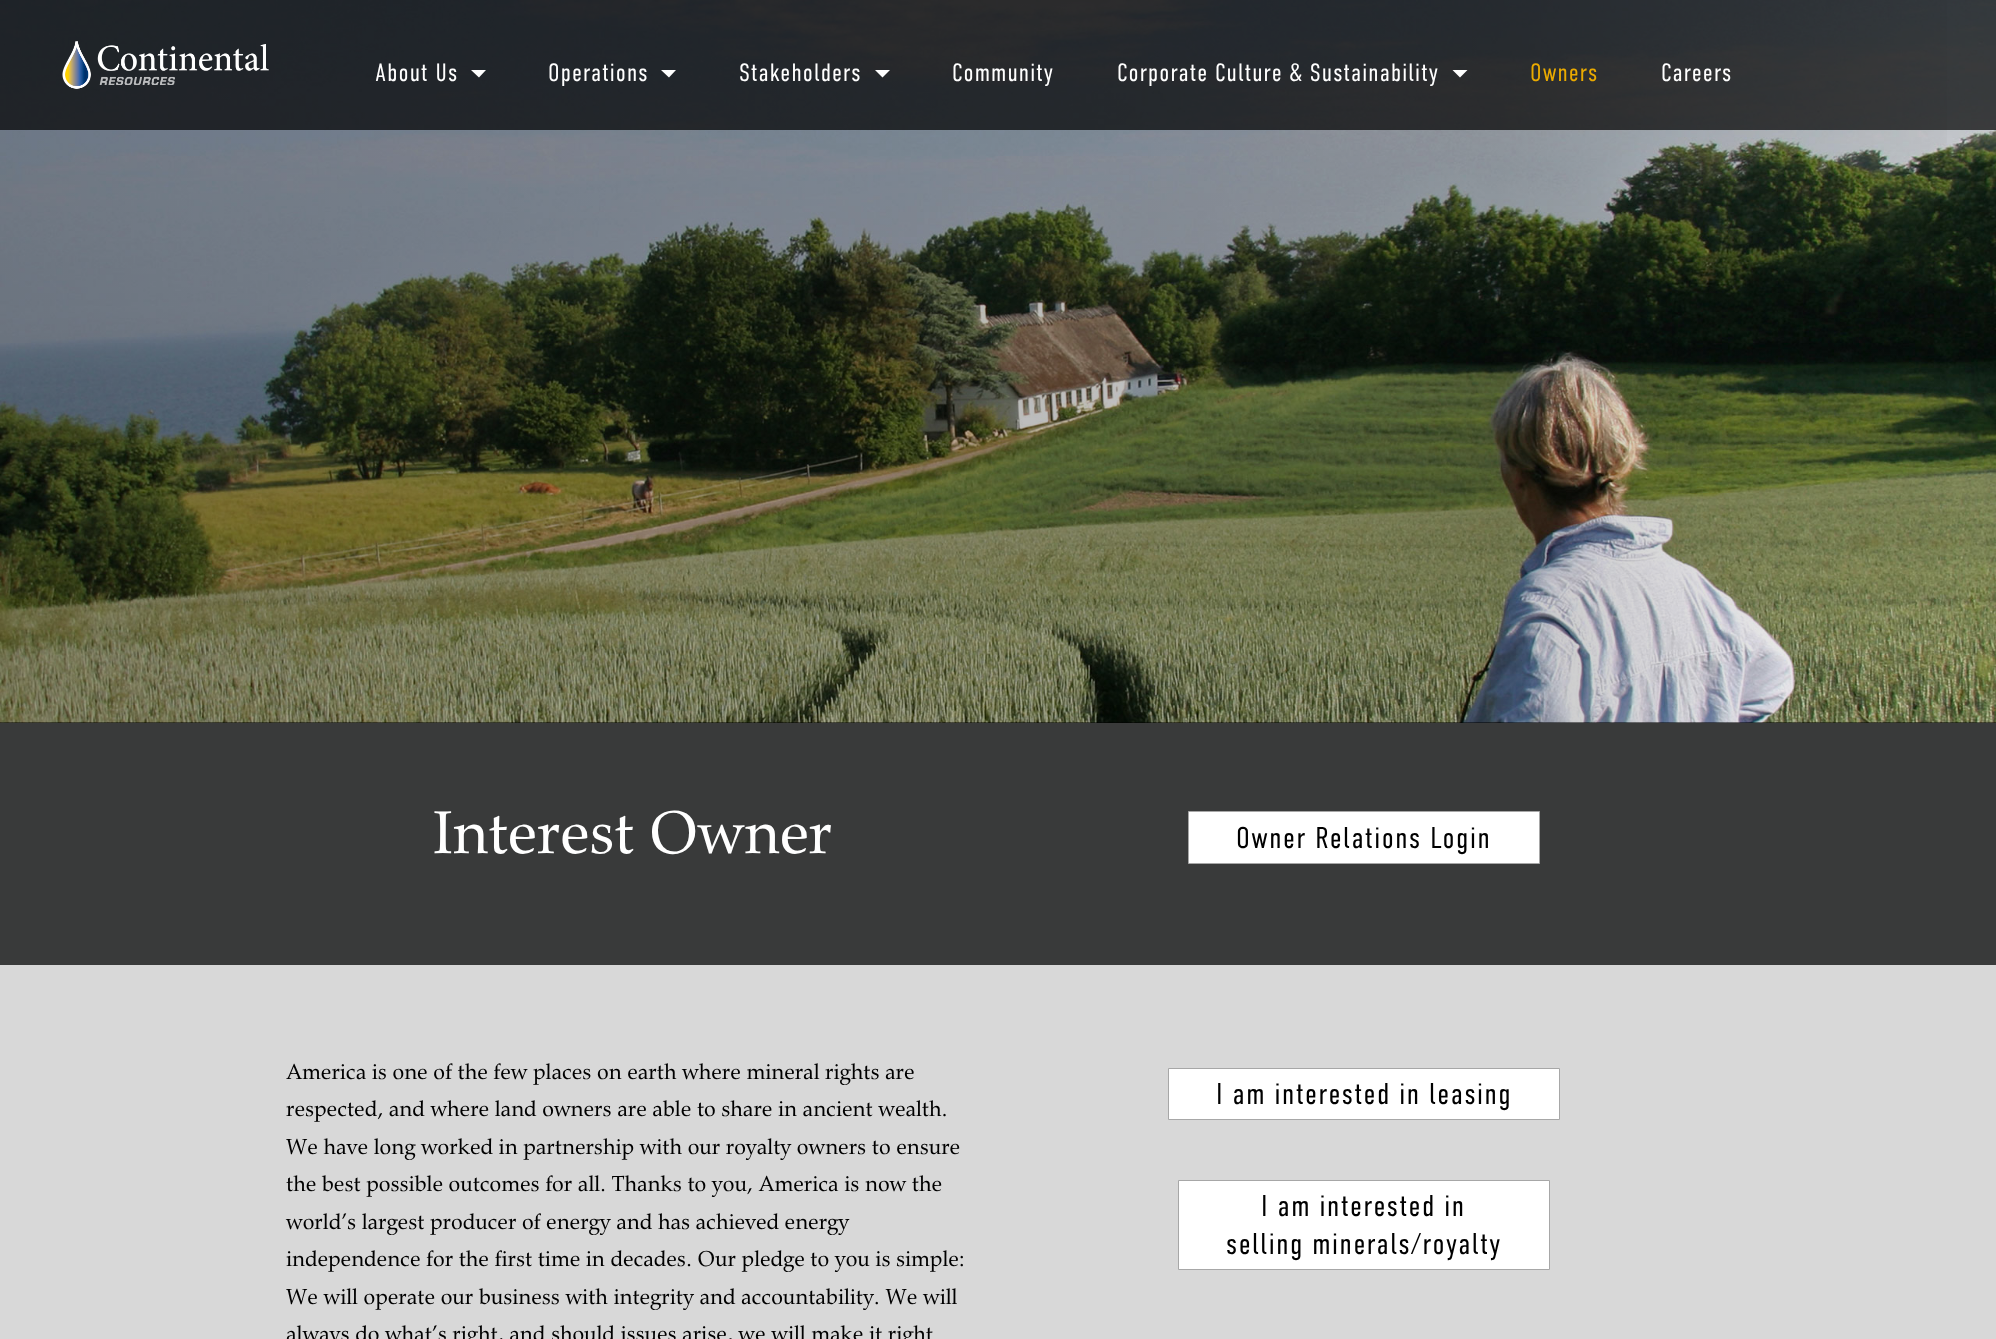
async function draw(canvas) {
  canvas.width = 1996;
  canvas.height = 1339;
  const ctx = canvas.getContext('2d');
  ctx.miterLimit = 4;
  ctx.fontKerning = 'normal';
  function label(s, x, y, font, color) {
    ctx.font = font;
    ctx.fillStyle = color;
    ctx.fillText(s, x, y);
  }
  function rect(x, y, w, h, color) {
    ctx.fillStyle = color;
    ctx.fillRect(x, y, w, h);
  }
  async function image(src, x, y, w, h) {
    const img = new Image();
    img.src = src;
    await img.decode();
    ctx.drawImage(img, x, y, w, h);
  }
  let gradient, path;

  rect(0, 0, 1996, 1339, '#d8d8d8');
  rect(0, 722, 1996, 1, '#000');
  await image('assets/img2.png', 0, 0, 1996, 723);
  gradient = ctx.createLinearGradient(0, 361, 1996, 361);
  gradient.addColorStop(0, '#00000059');
  gradient.addColorStop(0.75, '#00000038');
  gradient.addColorStop(1, '#00000000');
  ctx.fillStyle = gradient;
  ctx.fillRect(0, 0, 1947, 723);
  rect(0, 0, 1996, 130, '#000000b3');
  await image('assets/img1.png', 62, 41, 207, 48);
  ctx.letterSpacing = '1.1px';
  label('About Us', 375, 81, '300 25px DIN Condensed', '#fff');
  path = new Path2D('M471 70H486L479 77.5Z');
  ctx.fill(path);
  label('Operations', 548, 81, '300 25px DIN Condensed', '#fff');
  path = new Path2D('M661 70H676L669 77.5Z');
  ctx.fill(path);
  label('Stakeholders', 739, 81, '300 25px DIN Condensed', '#fff');
  path = new Path2D('M875 70H890L882.5 77.5Z');
  ctx.fill(path);
  label('Community', 952, 81, '300 25px DIN Condensed', '#fff');
  label('Corporate Culture & Sustainability', 1117, 81, '300 25px DIN Condensed', '#fff');
  path = new Path2D('M1452.5 70H1467.5L1460 77.5Z');
  ctx.fill(path);
  label('Owners', 1530, 81, '300 25px DIN Condensed', '#eaaa00');
  label('Careers', 1661, 81, '300 25px DIN Condensed', '#fff');
  rect(0, 723, 1996, 242, '#393a3a');
  ctx.letterSpacing = '-0.2px';
  label('Interest Owner', 433, 853, '62.5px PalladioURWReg', '#fff');
  ctx.beginPath();
  ctx.rect(1188.5, 811.5, 351, 52);
  ctx.fill();
  ctx.strokeStyle = '#a7a7a7';
  ctx.stroke();
  ctx.letterSpacing = '1.5px';
  label('Owner Relations Login', 1236, 848, '300 30px DIN Condensed', '#000');
  ctx.letterSpacing = '0px';
  label('America is one of the few places on earth where mineral rights are', 286, 1079, '22.5px PalladioURWReg', '#000');
  label('respected, and where land owners are able to share in ancient wealth.', 286, 1116, '22.5px PalladioURWReg', '#000');
  label('We have long worked in partnership with our royalty owners to ensure', 286, 1154, '22.5px PalladioURWReg', '#000');
  label('the best possible outcomes for all. Thanks to you, America is now the', 286, 1191, '22.5px PalladioURWReg', '#000');
  label('world’s largest producer of energy and has achieved energy', 286, 1229, '22.5px PalladioURWReg', '#000');
  label('independence for the first time in decades. Our pledge to you is simple:', 286, 1266, '22.5px PalladioURWReg', '#000');
  label('We will operate our business with integrity and accountability. We will', 286, 1304, '22.5px PalladioURWReg', '#000');
  label('always do what’s right, and should issues arise, we will make it right', 286, 1341, '22.5px PalladioURWReg', '#000');
  ctx.fillStyle = '#fff';
  ctx.beginPath();
  ctx.rect(1168.5, 1068.5, 391, 51);
  ctx.fill();
  ctx.stroke();
  ctx.letterSpacing = '1.5px';
  label('I am interested in leasing', 1216, 1104, '300 30px DIN Condensed', '#000');
  ctx.fillStyle = '#fff';
  ctx.beginPath();
  ctx.rect(1178.5, 1180.5, 371, 89);
  ctx.fill();
  ctx.stroke();
  label('I am interested in', 1261, 1216, '300 30px DIN Condensed', '#000');
  label('selling minerals/royalty', 1226, 1254, '300 30px DIN Condensed', '#000');
}

draw(document.querySelector('canvas'));
